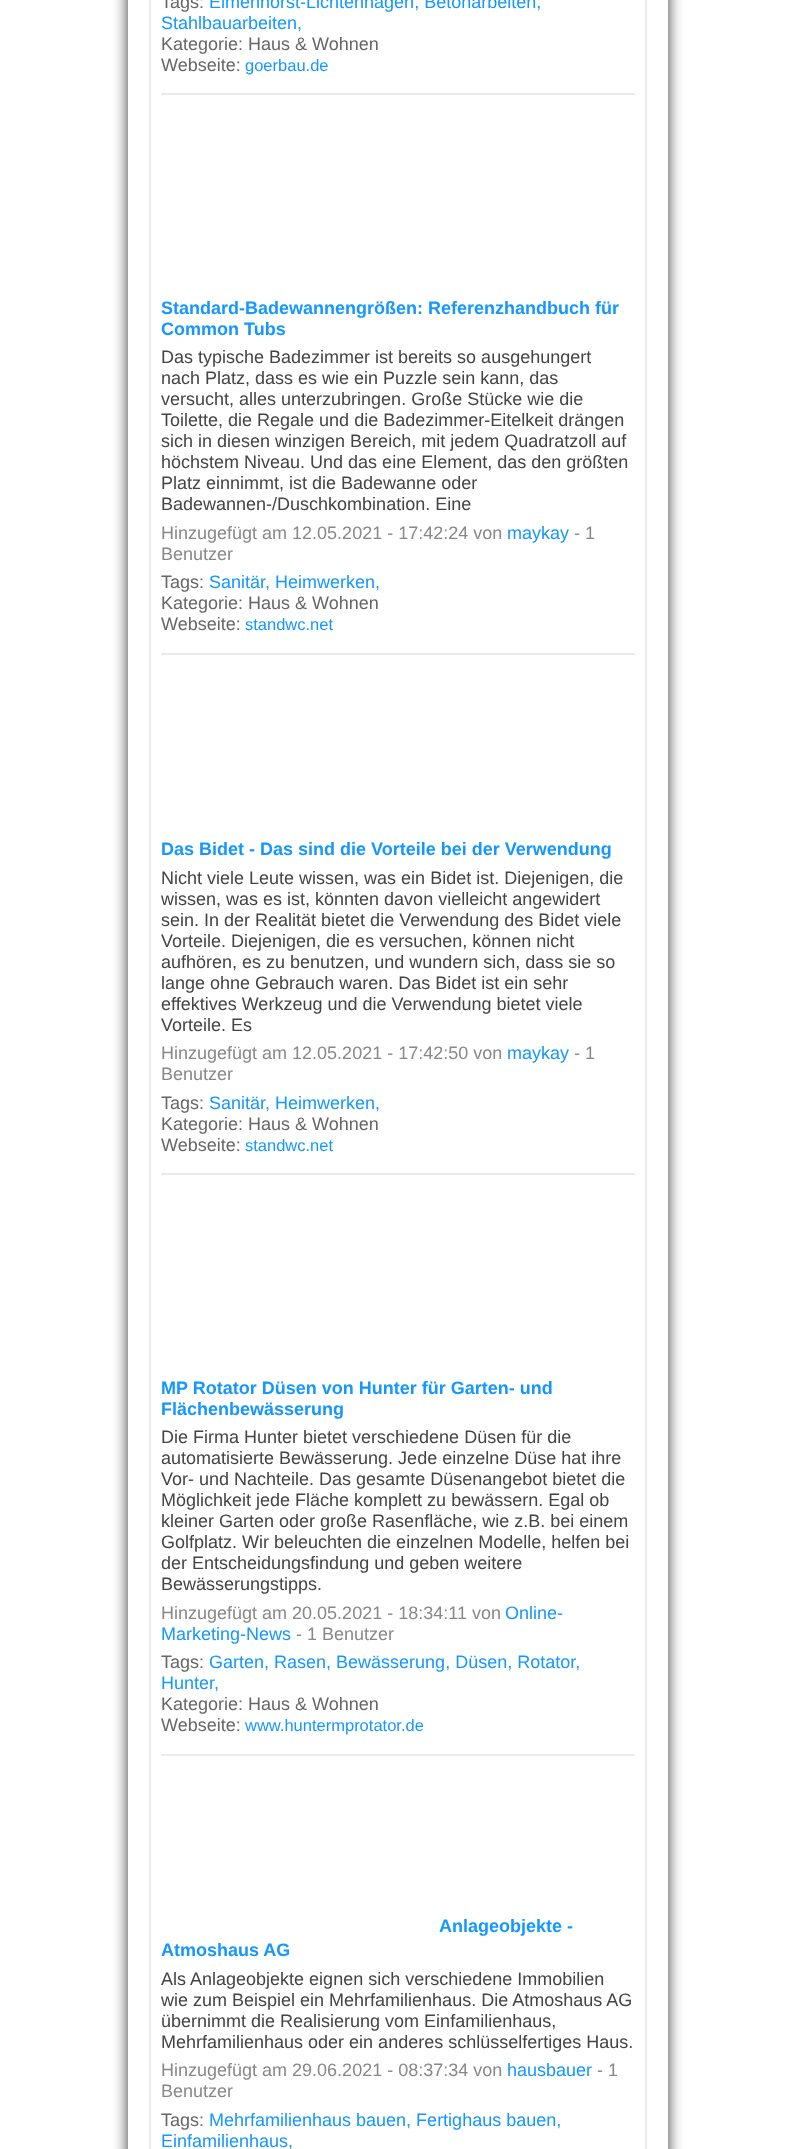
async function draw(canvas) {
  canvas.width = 795;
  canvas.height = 2149;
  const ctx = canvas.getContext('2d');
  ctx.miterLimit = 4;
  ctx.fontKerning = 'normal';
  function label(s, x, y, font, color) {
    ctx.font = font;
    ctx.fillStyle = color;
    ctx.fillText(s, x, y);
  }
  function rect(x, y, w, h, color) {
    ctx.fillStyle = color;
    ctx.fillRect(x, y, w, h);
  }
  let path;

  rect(0, 0, 795, 2149, '#fff');
  ctx.save();
  path = new Path2D('M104 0H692V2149H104ZM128-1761H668V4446H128Z');
  ctx.clip(path, 'evenodd');
  ctx.fillStyle = '#39393c';
  ctx.filter = 'blur(7.5px)';
  ctx.beginPath();
  ctx.rect(128, -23, 540, 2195);
  ctx.fill();
  ctx.filter = 'none';
  ctx.restore();
  rect(645, 0, 2, 2149, '#ebecea');
  rect(149, 0, 2, 2149, '#ebecea');
  label('Tags:', 161, 8, '18px Liberation Sans', '#666');
  label('Elmenhorst-Lichtenhagen, Betonarbeiten,', 209, 8, '18px Liberation Sans', '#1597ff');
  label('Stahlbauarbeiten,', 161, 29, '18px Liberation Sans', '#1597ff');
  label('Kategorie: Haus & Wohnen', 161, 50, '18px Liberation Sans', '#666');
  label('Webseite:', 161, 71, '18px Liberation Sans', '#666');
  label('goerbau.de', 245, 71, '16.5px Liberation Sans', '#1597ff');
  rect(161, 93, 474, 2, '#ebecea');
  label('Standard-Badewannengrößen: Referenzhandbuch für', 161, 314, 'bold 18px Liberation Sans', '#1597ff');
  label('Common Tubs', 161, 335, 'bold 18px Liberation Sans', '#1597ff');
  label('Das typische Badezimmer ist bereits so ausgehungert', 161, 363, '18px Liberation Sans', '#444');
  label('nach Platz, dass es wie ein Puzzle sein kann, das', 161, 384, '18px Liberation Sans', '#444');
  label('versucht, alles unterzubringen. Große Stücke wie die', 161, 405, '18px Liberation Sans', '#444');
  label('Toilette, die Regale und die Badezimmer-Eitelkeit drängen', 161, 426, '18px Liberation Sans', '#444');
  label('sich in diesen winzigen Bereich, mit jedem Quadratzoll auf', 161, 447, '18px Liberation Sans', '#444');
  label('höchstem Niveau. Und das eine Element, das den größten', 161, 468, '18px Liberation Sans', '#444');
  label('Platz einnimmt, ist die Badewanne oder', 161, 489, '18px Liberation Sans', '#444');
  label('Badewannen-/Duschkombination. Eine', 161, 510, '18px Liberation Sans', '#444');
  label('Hinzugefügt am 12.05.2021 - 17:42:24 von', 161, 539, '18px Liberation Sans', '#888');
  label('maykay', 507, 539, '18px Liberation Sans', '#1597ff');
  label('- 1', 574, 539, '18px Liberation Sans', '#888');
  label('Benutzer', 161, 560, '18px Liberation Sans', '#888');
  label('Tags:', 161, 588, '18px Liberation Sans', '#666');
  label('Sanitär, Heimwerken,', 209, 588, '18px Liberation Sans', '#1597ff');
  label('Kategorie: Haus & Wohnen', 161, 609, '18px Liberation Sans', '#666');
  label('Webseite:', 161, 630, '18px Liberation Sans', '#666');
  label('standwc.net', 245, 630, '16.5px Liberation Sans', '#1597ff');
  rect(161, 653, 474, 2, '#ebecea');
  label('Das Bidet - Das sind die Vorteile bei der Verwendung', 161, 855, 'bold 18px Liberation Sans', '#1597ff');
  label('Nicht viele Leute wissen, was ein Bidet ist. Diejenigen, die', 161, 884, '18px Liberation Sans', '#444');
  label('wissen, was es ist, könnten davon vielleicht angewidert', 161, 905, '18px Liberation Sans', '#444');
  label('sein. In der Realität bietet die Verwendung des Bidet viele', 161, 926, '18px Liberation Sans', '#444');
  label('Vorteile. Diejenigen, die es versuchen, können nicht', 161, 947, '18px Liberation Sans', '#444');
  label('aufhören, es zu benutzen, und wundern sich, dass sie so', 161, 968, '18px Liberation Sans', '#444');
  label('lange ohne Gebrauch waren. Das Bidet ist ein sehr', 161, 989, '18px Liberation Sans', '#444');
  label('effektives Werkzeug und die Verwendung bietet viele', 161, 1010, '18px Liberation Sans', '#444');
  label('Vorteile. Es', 161, 1031, '18px Liberation Sans', '#444');
  label('Hinzugefügt am 12.05.2021 - 17:42:50 von', 161, 1059, '18px Liberation Sans', '#888');
  label('maykay', 507, 1059, '18px Liberation Sans', '#1597ff');
  label('- 1', 574, 1059, '18px Liberation Sans', '#888');
  label('Benutzer', 161, 1080, '18px Liberation Sans', '#888');
  label('Tags:', 161, 1109, '18px Liberation Sans', '#666');
  label('Sanitär, Heimwerken,', 209, 1109, '18px Liberation Sans', '#1597ff');
  label('Kategorie: Haus & Wohnen', 161, 1130, '18px Liberation Sans', '#666');
  label('Webseite:', 161, 1151, '18px Liberation Sans', '#666');
  label('standwc.net', 245, 1151, '16.5px Liberation Sans', '#1597ff');
  rect(161, 1173, 474, 2, '#ebecea');
  label('MP Rotator Düsen von Hunter für Garten- und', 161, 1394, 'bold 18px Liberation Sans', '#1597ff');
  label('Flächenbewässerung', 161, 1415, 'bold 18px Liberation Sans', '#1597ff');
  label('Die Firma Hunter bietet verschiedene Düsen für die', 161, 1443, '18px Liberation Sans', '#444');
  label('automatisierte Bewässerung. Jede einzelne Düse hat ihre', 161, 1464, '18px Liberation Sans', '#444');
  label('Vor- und Nachteile. Das gesamte Düsenangebot bietet die', 161, 1485, '18px Liberation Sans', '#444');
  label('Möglichkeit jede Fläche komplett zu bewässern. Egal ob', 161, 1506, '18px Liberation Sans', '#444');
  label('kleiner Garten oder große Rasenfläche, wie z.B. bei einem', 161, 1527, '18px Liberation Sans', '#444');
  label('Golfplatz. Wir beleuchten die einzelnen Modelle, helfen bei', 161, 1548, '18px Liberation Sans', '#444');
  label('der Entscheidungsfindung und geben weitere', 161, 1569, '18px Liberation Sans', '#444');
  label('Bewässerungstipps.', 161, 1590, '18px Liberation Sans', '#444');
  label('Hinzugefügt am 20.05.2021 - 18:34:11 von', 161, 1619, '18px Liberation Sans', '#888');
  label('Online-', 505, 1619, '18px Liberation Sans', '#1597ff');
  label('Marketing-News', 161, 1640, '18px Liberation Sans', '#1597ff');
  label('- 1 Benutzer', 296, 1640, '18px Liberation Sans', '#888');
  label('Tags:', 161, 1668, '18px Liberation Sans', '#666');
  label('Garten, Rasen, Bewässerung, Düsen, Rotator,', 209, 1668, '18px Liberation Sans', '#1597ff');
  label('Hunter,', 161, 1689, '18px Liberation Sans', '#1597ff');
  label('Kategorie: Haus & Wohnen', 161, 1710, '18px Liberation Sans', '#666');
  label('Webseite:', 161, 1731, '18px Liberation Sans', '#666');
  label('www.huntermprotator.de', 245, 1731, '16.5px Liberation Sans', '#1597ff');
  rect(161, 1754, 474, 2, '#ebecea');
  label('Anlageobjekte -', 439, 1932, 'bold 18px Liberation Sans', '#1597ff');
  label('Atmoshaus AG', 161, 1956, 'bold 18px Liberation Sans', '#1597ff');
  label('Als Anlageobjekte eignen sich verschiedene Immobilien', 161, 1985, '18px Liberation Sans', '#444');
  label('wie zum Beispiel ein Mehrfamilienhaus. Die Atmoshaus AG', 161, 2006, '18px Liberation Sans', '#444');
  label('übernimmt die Realisierung vom Einfamilienhaus,', 161, 2027, '18px Liberation Sans', '#444');
  label('Mehrfamilienhaus oder ein anderes schlüsselfertiges Haus.', 161, 2048, '18px Liberation Sans', '#444');
  label('Hinzugefügt am 29.06.2021 - 08:37:34 von', 161, 2076, '18px Liberation Sans', '#888');
  label('hausbauer', 507, 2076, '18px Liberation Sans', '#1597ff');
  label('- 1', 597, 2076, '18px Liberation Sans', '#888');
  label('Benutzer', 161, 2097, '18px Liberation Sans', '#888');
  label('Tags:', 161, 2126, '18px Liberation Sans', '#666');
  label('Mehrfamilienhaus bauen, Fertighaus bauen,', 209, 2126, '18px Liberation Sans', '#1597ff');
  label('Einfamilienhaus,', 161, 2147, '18px Liberation Sans', '#1597ff');
}

draw(document.querySelector('canvas'));
